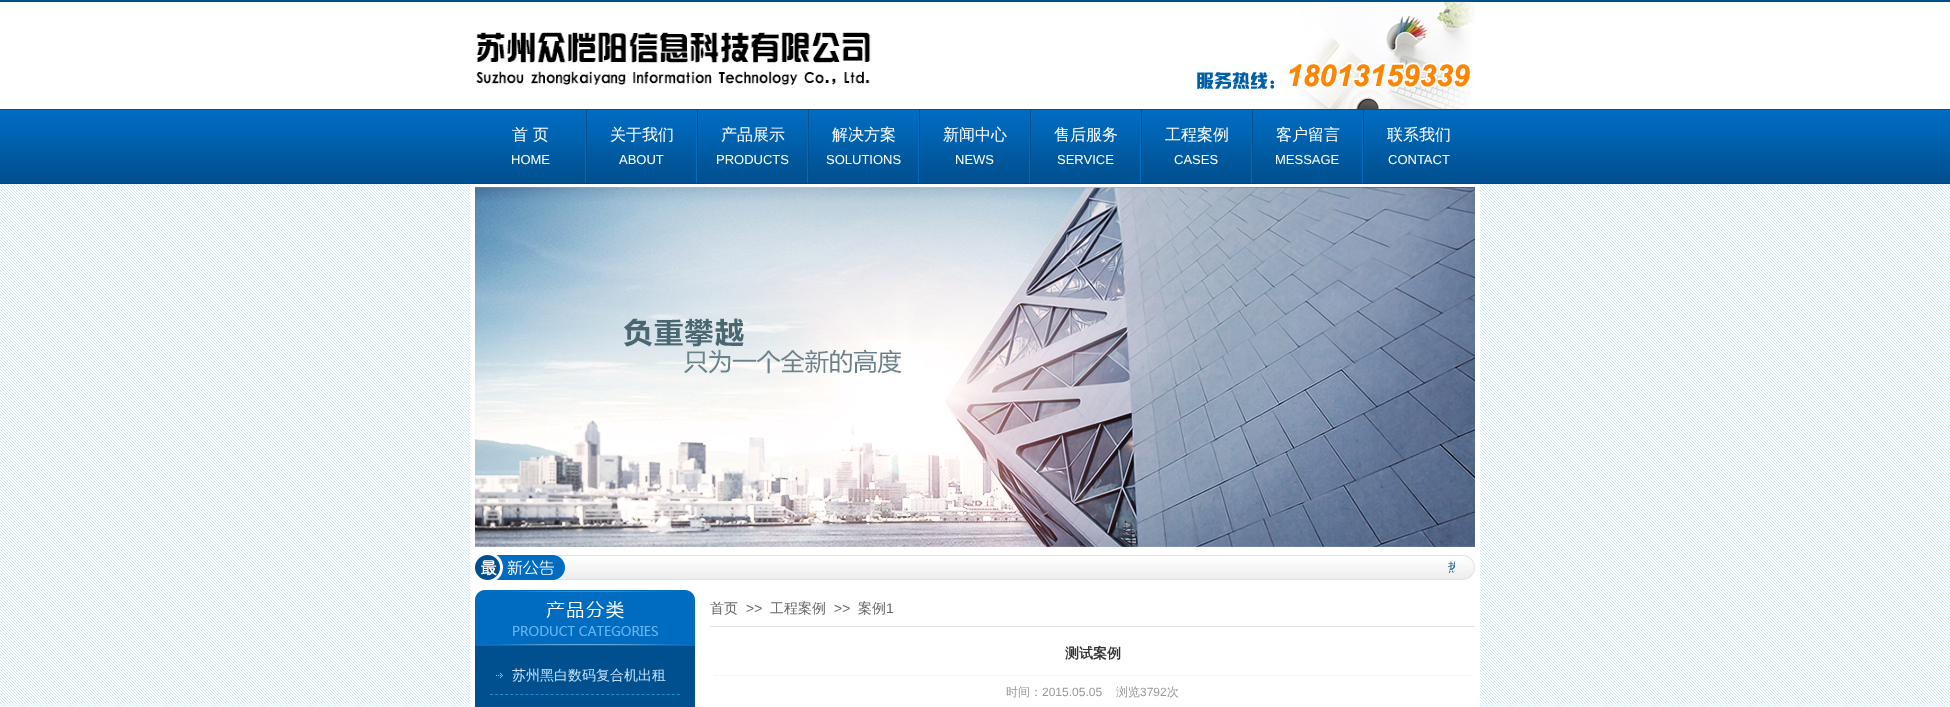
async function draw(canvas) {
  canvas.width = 1950;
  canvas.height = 707;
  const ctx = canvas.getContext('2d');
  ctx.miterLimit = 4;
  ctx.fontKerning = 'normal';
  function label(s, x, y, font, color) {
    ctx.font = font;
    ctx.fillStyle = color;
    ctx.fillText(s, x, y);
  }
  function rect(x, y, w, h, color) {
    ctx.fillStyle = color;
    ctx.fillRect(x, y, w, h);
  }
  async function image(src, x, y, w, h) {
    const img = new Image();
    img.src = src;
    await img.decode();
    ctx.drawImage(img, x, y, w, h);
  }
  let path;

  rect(0, 0, 1950, 707, '#fff');
  await image('assets/img1.png', 0, 184, 1950, 523);
  rect(0, 0, 1950, 2, '#00508f');
  await image('assets/img2.png', 476, 32, 395, 53);
  await image('assets/img3.png', 1194, 2, 281, 107);
  await image('assets/img4.png', 0, 110, 1950, 74);
  rect(0, 109, 1950, 1, '#00508f');
  rect(585, 110, 1, 73, '#006cc1');
  label('首 页', 512, 140, '500 16px WenQuanYi Zen Hei', '#fff');
  label('HOME', 511, 164, '13px Liberation Sans', '#fff');
  rect(696, 110, 1, 73, '#006cc1');
  rect(586, 110, 1, 73, '#00508f');
  label('关于我们', 610, 140, '500 16px WenQuanYi Zen Hei', '#fff');
  label('ABOUT', 619, 164, '13px Liberation Sans', '#fff');
  rect(807, 110, 1, 73, '#006cc1');
  rect(697, 110, 1, 73, '#00508f');
  label('产品展示', 721, 140, '500 16px WenQuanYi Zen Hei', '#fff');
  label('PRODUCTS', 716, 164, '13px Liberation Sans', '#fff');
  rect(918, 110, 1, 73, '#006cc1');
  rect(808, 110, 1, 73, '#00508f');
  label('解决方案', 832, 140, '500 16px WenQuanYi Zen Hei', '#fff');
  label('SOLUTIONS', 826, 164, '13px Liberation Sans', '#fff');
  rect(1029, 110, 1, 73, '#006cc1');
  rect(919, 110, 1, 73, '#00508f');
  label('新闻中心', 943, 140, '500 16px WenQuanYi Zen Hei', '#fff');
  label('NEWS', 955, 164, '13px Liberation Sans', '#fff');
  rect(1140, 110, 1, 73, '#006cc1');
  rect(1030, 110, 1, 73, '#00508f');
  label('售后服务', 1054, 140, '500 16px WenQuanYi Zen Hei', '#fff');
  label('SERVICE', 1057, 164, '13px Liberation Sans', '#fff');
  rect(1251, 110, 1, 73, '#006cc1');
  rect(1141, 110, 1, 73, '#00508f');
  label('工程案例', 1165, 140, '500 16px WenQuanYi Zen Hei', '#fff');
  label('CASES', 1174, 164, '13px Liberation Sans', '#fff');
  rect(1362, 110, 1, 73, '#006cc1');
  rect(1252, 110, 1, 73, '#00508f');
  label('客户留言', 1276, 140, '500 16px WenQuanYi Zen Hei', '#fff');
  label('MESSAGE', 1275, 164, '13px Liberation Sans', '#fff');
  rect(1363, 110, 1, 73, '#00508f');
  label('联系我们', 1387, 140, '500 16px WenQuanYi Zen Hei', '#fff');
  label('CONTACT', 1388, 164, '13px Liberation Sans', '#fff');
  rect(470, 184, 1010, 523, '#fff');
  await image('assets/img5.png', 475, 187, 1000, 360);
  await image('assets/img6.png', 475, 555, 1000, 25);
  ctx.save();
  ctx.beginPath();
  ctx.rect(575, 555, 880, 25);
  ctx.clip();
  label('热', 1448, 571, '500 12px WenQuanYi Zen Hei', '#00508f');
  ctx.restore();
  rect(475, 646, 220, 61, '#00508f');
  await image('assets/img7.png', 475, 590, 220, 56);
  await image('assets/img8.png', 496, 673, 7, 5);
  path = new Path2D('M490 694.5H680');
  ctx.strokeStyle = '#1f8dcf';
  ctx.setLineDash([3, 2.05]);
  ctx.stroke(path);
  label('苏州黑白数码复合机出租', 512, 680, '500 14px WenQuanYi Zen Hei', '#c3e2fe');
  rect(710, 626, 765, 1, '#e2e2e2');
  label('首页', 710, 613, '500 14px WenQuanYi Zen Hei', '#666');
  label('>>', 746, 613, '14px Liberation Sans', '#666');
  label('工程案例', 770, 613, '500 14px WenQuanYi Zen Hei', '#666');
  label('>>', 834, 613, '14px Liberation Sans', '#666');
  label('案例', 858, 613, '500 14px WenQuanYi Zen Hei', '#666');
  label('1', 886, 613, '14px Liberation Sans', '#666');
  label('测试案例', 1065, 658, 'bold 14px WenQuanYi Zen Hei', '#333');
  path = new Path2D('M714 675.5H1471');
  ctx.strokeStyle = '#eee';
  ctx.setLineDash([1, 1]);
  ctx.stroke(path);
  label('时间：', 1006, 696, '500 12px WenQuanYi Zen Hei', '#999');
  label('2015.05.05', 1042, 696, '12px Liberation Sans', '#999');
  label('浏览', 1116, 696, '500 12px WenQuanYi Zen Hei', '#999');
  label('3792', 1140, 696, '12px Liberation Sans', '#999');
  label('次', 1167, 696, '500 12px WenQuanYi Zen Hei', '#999');
}

draw(document.querySelector('canvas'));
